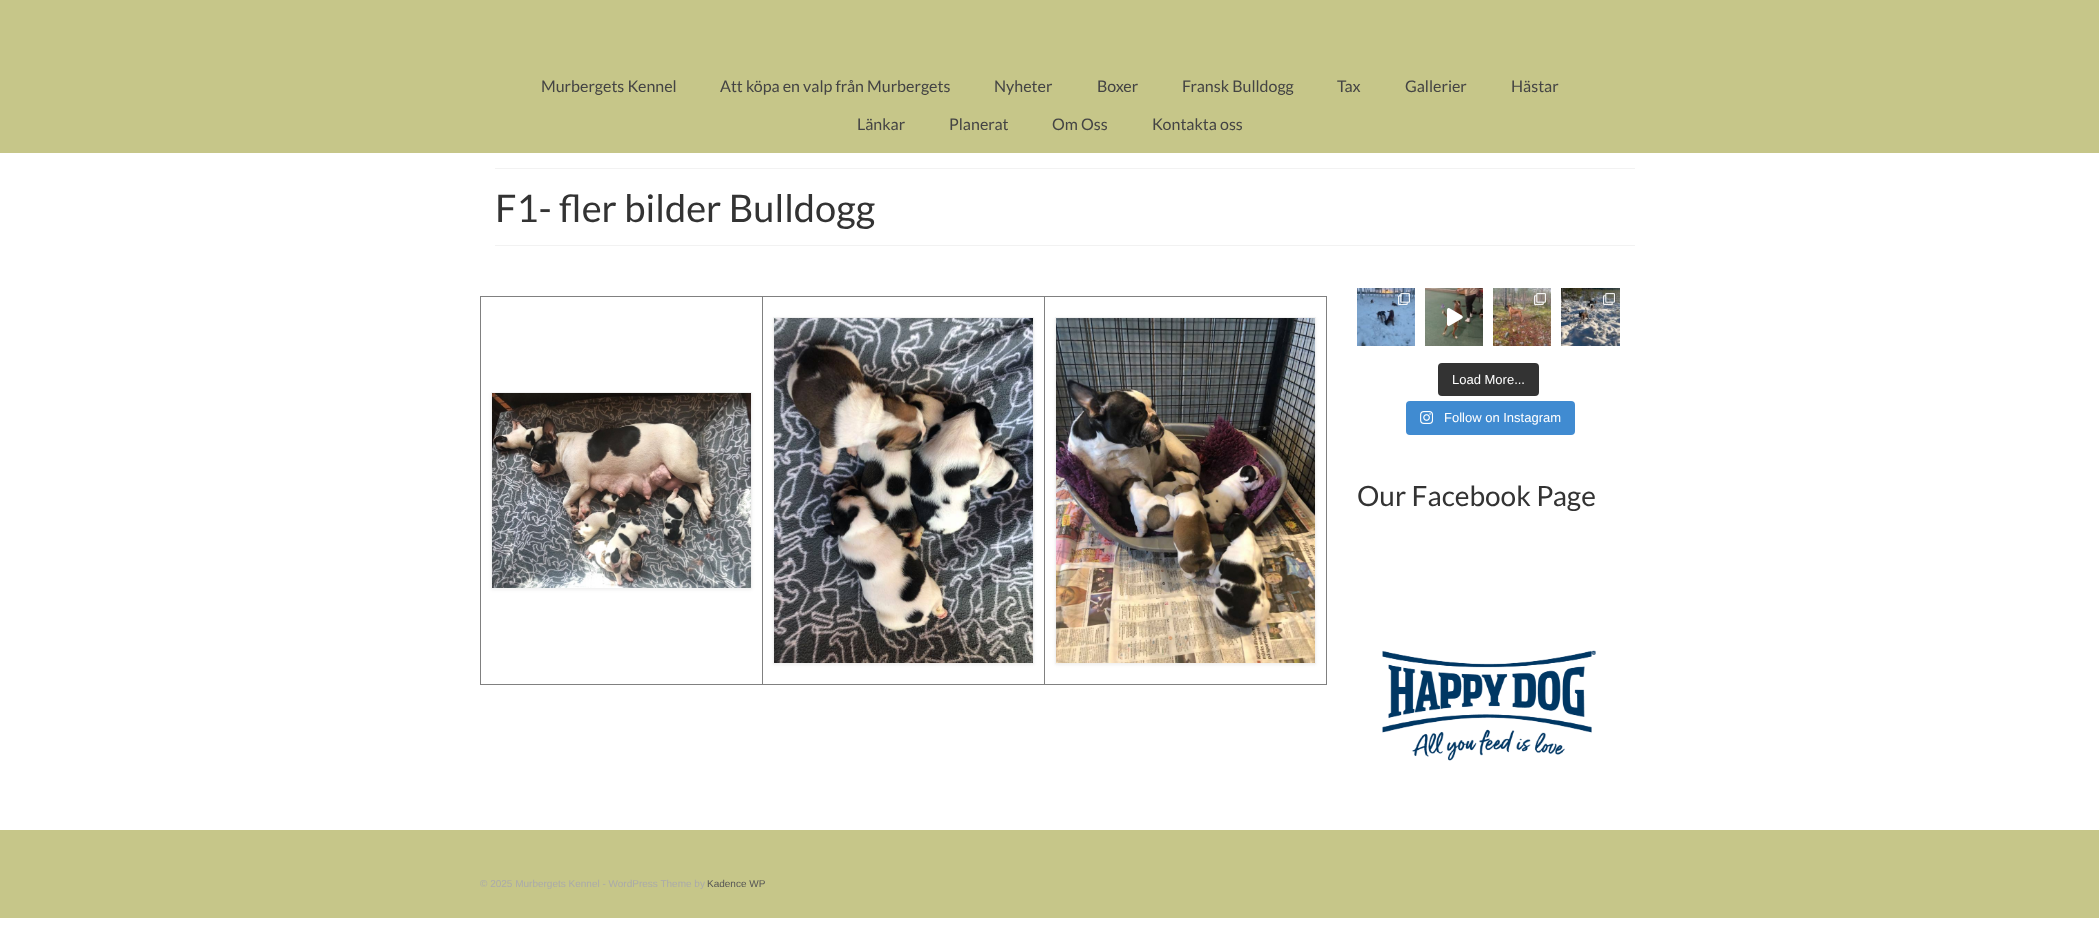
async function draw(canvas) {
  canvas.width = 2099;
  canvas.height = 934;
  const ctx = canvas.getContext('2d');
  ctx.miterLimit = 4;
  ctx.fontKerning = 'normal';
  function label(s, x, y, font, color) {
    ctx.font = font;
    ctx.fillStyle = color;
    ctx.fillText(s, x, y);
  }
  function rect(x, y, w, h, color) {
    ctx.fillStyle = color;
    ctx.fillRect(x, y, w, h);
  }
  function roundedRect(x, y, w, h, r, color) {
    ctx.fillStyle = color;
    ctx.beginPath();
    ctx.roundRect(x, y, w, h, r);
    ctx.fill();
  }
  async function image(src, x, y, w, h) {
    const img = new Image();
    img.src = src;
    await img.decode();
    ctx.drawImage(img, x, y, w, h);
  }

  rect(0, 0, 2099, 934, '#fff');
  rect(0, 0, 2099, 153, '#c6c689');
  label('Murbergets Kennel', 541, 92, '16px Lato', '#444');
  label('Att köpa en valp från Murbergets', 720, 92, '16px Lato', '#444');
  label('Nyheter', 994, 92, '16px Lato', '#444');
  label('Boxer', 1097, 92, '16px Lato', '#444');
  label('Fransk Bulldogg', 1182, 92, '16px Lato', '#444');
  label('Tax', 1337, 92, '16px Lato', '#444');
  label('Gallerier', 1405, 92, '16px Lato', '#444');
  label('Hästar', 1511, 92, '16px Lato', '#444');
  label('Länkar', 857, 130, '16px Lato', '#444');
  label('Planerat', 949, 130, '16px Lato', '#444');
  label('Om Oss', 1052, 130, '16px Lato', '#444');
  label('Kontakta oss', 1152, 130, '16px Lato', '#444');
  rect(495, 168, 1140, 1, '#f2f2f2');
  rect(495, 245, 1140, 1, '#f2f2f2');
  label('F1- fler bilder Bulldogg', 495, 222, '38px Lato', '#333');
  rect(480, 296, 847, 1, '#808080');
  rect(1326, 296, 1, 389, '#808080');
  rect(480, 684, 847, 1, '#808080');
  rect(480, 296, 1, 389, '#808080');
  ctx.fillStyle = '#0000000f';
  ctx.filter = 'blur(1.5px)';
  ctx.beginPath();
  ctx.rect(491, 393, 261, 197);
  ctx.fill();
  ctx.filter = 'none';
  ctx.strokeStyle = '#f2f2f2';
  ctx.strokeRect(491.5, 392.5, 260, 196);
  await image('assets/img1.png', 492, 393, 259, 195);
  rect(762, 296, 1, 389, '#808080');
  ctx.fillStyle = '#0000000f';
  ctx.filter = 'blur(1.5px)';
  ctx.beginPath();
  ctx.rect(773, 318, 261, 347);
  ctx.fill();
  ctx.filter = 'none';
  ctx.strokeRect(773.5, 317.5, 260, 346);
  await image('assets/img2.png', 774, 318, 259, 345);
  rect(1044, 296, 1, 389, '#808080');
  ctx.fillStyle = '#0000000f';
  ctx.filter = 'blur(1.5px)';
  ctx.beginPath();
  ctx.rect(1055, 318, 261, 347);
  ctx.fill();
  ctx.filter = 'none';
  ctx.strokeRect(1055.5, 317.5, 260, 346);
  await image('assets/img3.png', 1056, 318, 259, 345);
  await image('assets/img4.png', 1357, 288, 58, 58);
  await image('assets/img5.png', 1398, 293, 12, 12);
  await image('assets/img6.png', 1425, 288, 58, 58);
  await image('assets/img7.png', 1447, 308, 16, 18);
  await image('assets/img8.png', 1493, 288, 58, 58);
  await image('assets/img9.png', 1534, 293, 12, 12);
  await image('assets/img10.png', 1561, 288, 59, 58);
  await image('assets/img11.png', 1603, 293, 12, 12);
  roundedRect(1438, 363, 101, 33, 4, '#333');
  label('Load More...', 1452, 384, '13px Liberation Sans', '#fff');
  roundedRect(1406, 401, 169, 34, 4, '#408bd1');
  await image('assets/img12.png', 1420, 411, 13, 13);
  label('Follow on Instagram', 1444, 422, '13px Liberation Sans', '#fff');
  label('Our Facebook Page', 1357, 506, '28px Lato', '#333');
  await image('assets/img13.png', 1382, 650, 214, 111);
  rect(0, 830, 2099, 88, '#c6c689');
  label('© 2025 Murbergets Kennel - WordPress Theme by', 480, 887, '10px Liberation Sans', '#aaa');
  label('Kadence WP', 707, 887, '10px Liberation Sans', '#555');
}

draw(document.querySelector('canvas'));
